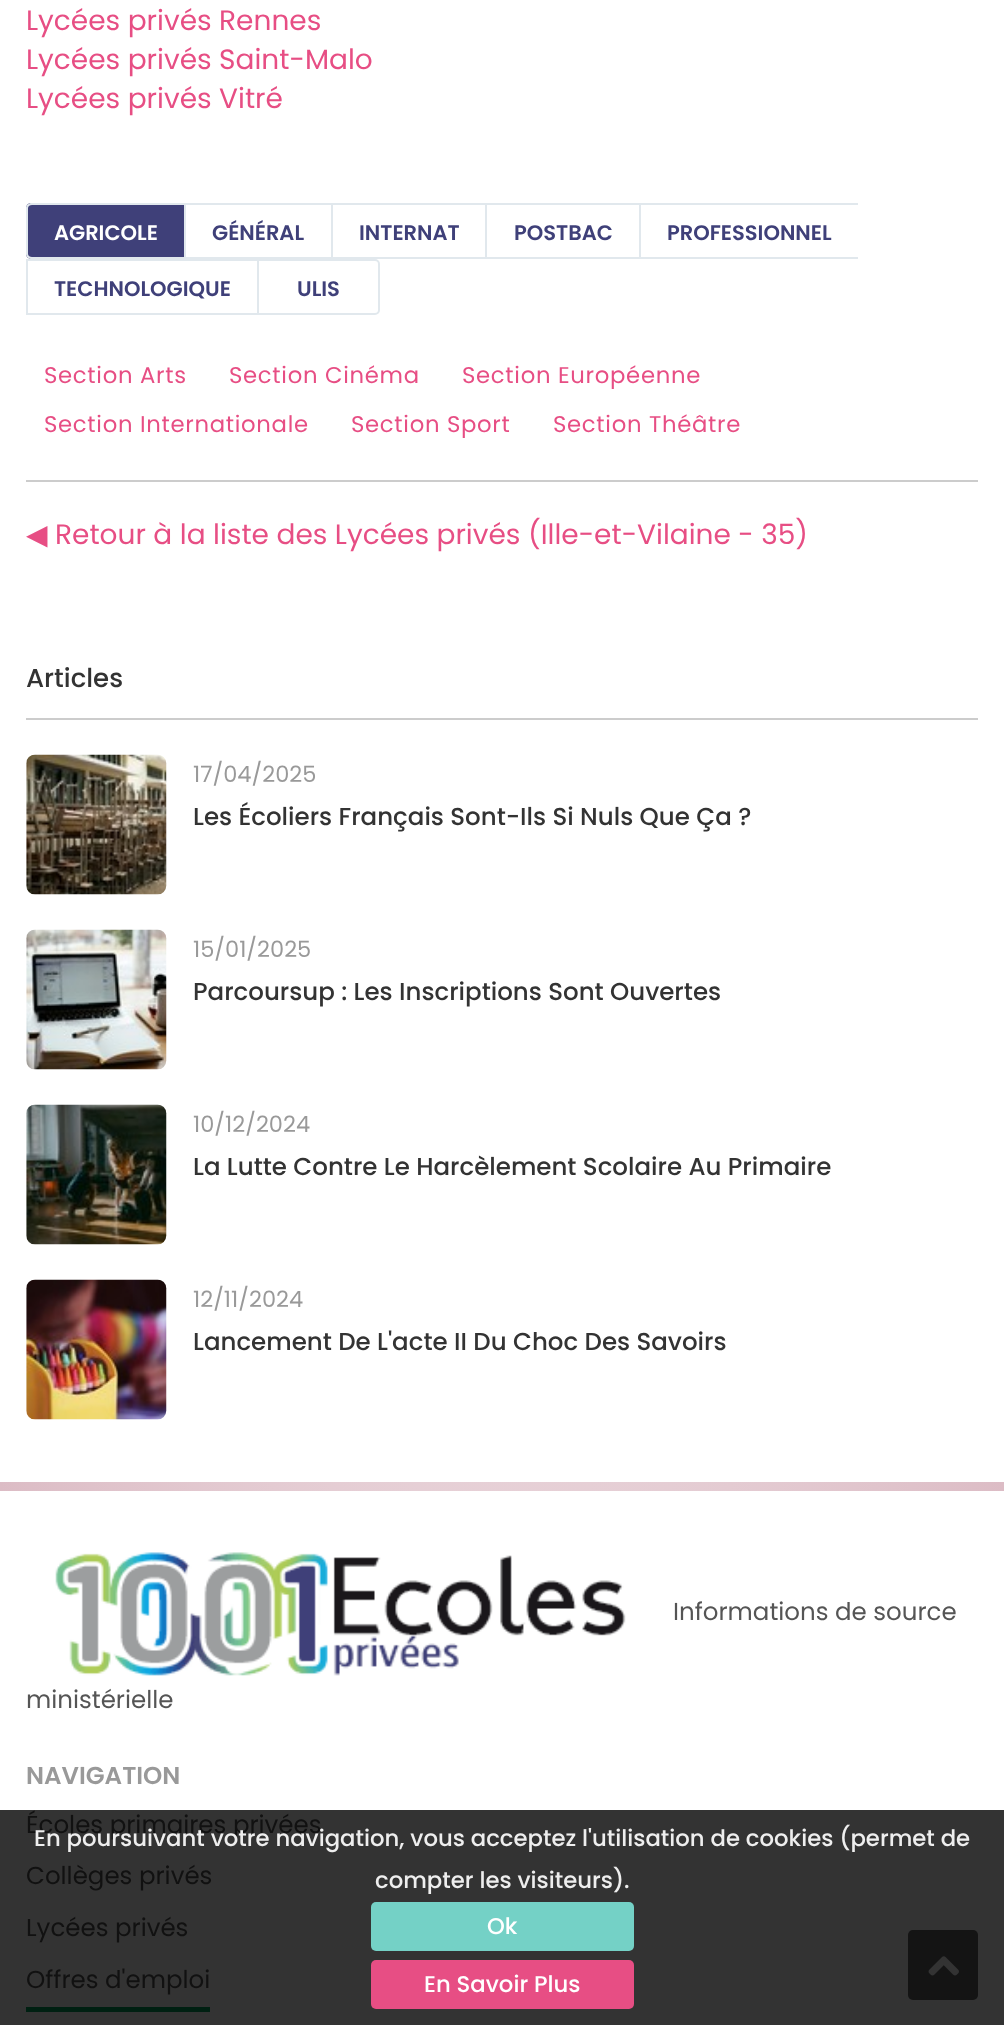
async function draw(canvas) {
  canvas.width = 1004;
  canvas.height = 2025;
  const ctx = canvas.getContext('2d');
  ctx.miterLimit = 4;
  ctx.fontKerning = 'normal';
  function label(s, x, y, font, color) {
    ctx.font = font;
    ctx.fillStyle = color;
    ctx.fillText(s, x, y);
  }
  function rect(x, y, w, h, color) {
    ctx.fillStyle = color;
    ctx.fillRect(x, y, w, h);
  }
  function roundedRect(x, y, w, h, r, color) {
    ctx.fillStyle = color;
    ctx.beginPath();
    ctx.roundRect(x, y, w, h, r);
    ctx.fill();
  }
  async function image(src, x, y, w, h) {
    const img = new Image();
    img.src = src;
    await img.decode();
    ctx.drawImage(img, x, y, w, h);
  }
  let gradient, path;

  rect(0, 0, 1004, 2025, '#fff');
  rect(0, 1810, 1004, 215, '#333');
  gradient = ctx.createRadialGradient(502, -295.73, 0, 502, -295.73, 710);
  gradient.addColorStop(0, '#fff');
  gradient.addColorStop(1, '#dcbcc5');
  ctx.fillStyle = gradient;
  ctx.beginPath();
  ctx.rect(0, 1482, 1004, 9);
  ctx.save();
  ctx.clip();
  ctx.scale(1, 5133 / 710);
  ctx.fillRect(0, 0, 1004, 281);
  ctx.restore();
  label('Lycées privés Rennes', 26, 30, '28px Poppins', '#e74e84');
  label('Lycées privés Saint-Malo', 26, 69, '28px Poppins', '#e74e84');
  label('Lycées privés Vitré', 26, 108, '28px Poppins', '#e74e84');
  rect(26, 480, 952, 2, '#ccc');
  ctx.fillStyle = '#3f4079';
  ctx.beginPath();
  ctx.roundRect(26, 203, 158, 56, [5, 0, 0, 5]);
  ctx.fill();
  ctx.fillStyle = '#e1e8ed';
  path = new Path2D('M32 203H184V259H32C29 259 26 257 26 254V208C26 205 29 203 32 203ZM32 205H184V257H32C30 257 28 256 28 254V208C28 206 30 205 32 205Z');
  ctx.fill(path, 'evenodd');
  label('AGRICOLE', 54, 240, '600 21px Poppins', '#fff');
  rect(184, 203, 674, 2, '#e1e8ed');
  rect(184, 257, 674, 2, '#e1e8ed');
  rect(184, 203, 2, 56, '#e1e8ed');
  label('GÉNÉRAL', 212, 240, '600 21px Poppins', '#3f4079');
  rect(331, 203, 2, 56, '#e1e8ed');
  label('INTERNAT', 359, 240, '600 21px Poppins', '#3f4079');
  rect(485, 203, 2, 56, '#e1e8ed');
  label('POSTBAC', 514, 240, '600 21px Poppins', '#3f4079');
  rect(639, 203, 2, 56, '#e1e8ed');
  label('PROFESSIONNEL', 667, 240, '600 21px Poppins', '#3f4079');
  rect(26, 259, 231, 2, '#e1e8ed');
  rect(26, 313, 231, 2, '#e1e8ed');
  rect(26, 259, 2, 56, '#e1e8ed');
  label('TECHNOLOGIQUE', 54, 296, '600 21px Poppins', '#3f4079');
  ctx.beginPath();
  ctx.roundRect(258, 260, 121, 54, [0, 4, 4, 0]);
  ctx.strokeStyle = '#e1e8ed';
  ctx.lineWidth = 2;
  ctx.stroke();
  label('ULIS', 297, 296, '600 21px Poppins', '#3f4079');
  ctx.letterSpacing = '0.7px';
  label('Section Arts', 44, 383, '22.75px Poppins', '#e74e84');
  label('Section Cinéma', 229, 383, '22.75px Poppins', '#e74e84');
  label('Section Européenne', 462, 383, '22.75px Poppins', '#e74e84');
  label('Section Internationale', 44, 432, '22.75px Poppins', '#e74e84');
  label('Section Sport', 351, 432, '22.75px Poppins', '#e74e84');
  label('Section Théâtre', 553, 432, '22.75px Poppins', '#e74e84');
  ctx.letterSpacing = '0px';
  label('◀', 26, 544, '28px DejaVu Sans', '#e74e84');
  label('Retour à la liste des Lycées privés (Ille-et-Vilaine - 35)', 55, 544, '28px Poppins', '#e74e84');
  rect(26, 718, 952, 2, '#ccc');
  label('Articles', 26, 687, '500 26px Poppins', '#333');
  await image('assets/img1.png', 26, 754, 141, 141);
  label('17/04/2025', 193, 782, '22.5px Poppins', '#999');
  label('Les Écoliers Français Sont-Ils Si Nuls Que Ça ?', 193, 825, '500 24.5px Poppins', '#333');
  await image('assets/img2.png', 26, 929, 141, 141);
  label('15/01/2025', 193, 957, '22.5px Poppins', '#999');
  label('Parcoursup : Les Inscriptions Sont Ouvertes', 193, 1000, '500 24.5px Poppins', '#333');
  await image('assets/img3.png', 26, 1104, 141, 141);
  label('10/12/2024', 193, 1132, '22.5px Poppins', '#999');
  label('La Lutte Contre Le Harcèlement Scolaire Au Primaire', 193, 1175, '500 24.5px Poppins', '#333');
  await image('assets/img4.png', 26, 1279, 141, 141);
  label('12/11/2024', 193, 1307, '22.5px Poppins', '#999');
  label('Lancement De L\'acte II Du Choc Des Savoirs', 193, 1350, '500 24.5px Poppins', '#333');
  await image('assets/img5.png', 55, 1552, 571, 124);
  label('Informations de source', 673, 1620, '24.5px Poppins', '#555');
  label('ministérielle', 26, 1708, '24.5px Poppins', '#555');
  label('NAVIGATION', 26, 1784, '600 24.5px Poppins', '#999');
  label('Écoles primaires privées', 26, 1833, '24.5px Poppins', '#111');
  label('Collèges privés', 26, 1884, '24.5px Poppins', '#111');
  label('Lycées privés', 26, 1936, '24.5px Poppins', '#111');
  rect(26, 2007, 184, 5, '#002012');
  label('Offres d\'emploi', 26, 1988, '24.5px Poppins', '#111');
  label('En poursuivant votre navigation, vous acceptez l\'utilisation de cookies (permet de', 34, 1846, '500 22.75px Poppins', '#eee');
  label('compter les visiteurs).', 375, 1888, '500 22.75px Poppins', '#eee');
  roundedRect(371, 1902, 263, 49, 5, '#74d1c6');
  label('Ok', 487, 1934, '500 22.75px Poppins', '#fff');
  roundedRect(371, 1960, 263, 49, 5, '#e74e84');
  label('En Savoir Plus', 424, 1992, '500 22.75px Poppins', '#fff');
  roundedRect(908, 1930, 70, 70, 5, '#141414');
  await image('assets/img6.png', 928, 1956, 31, 20);
}

draw(document.querySelector('canvas'));
